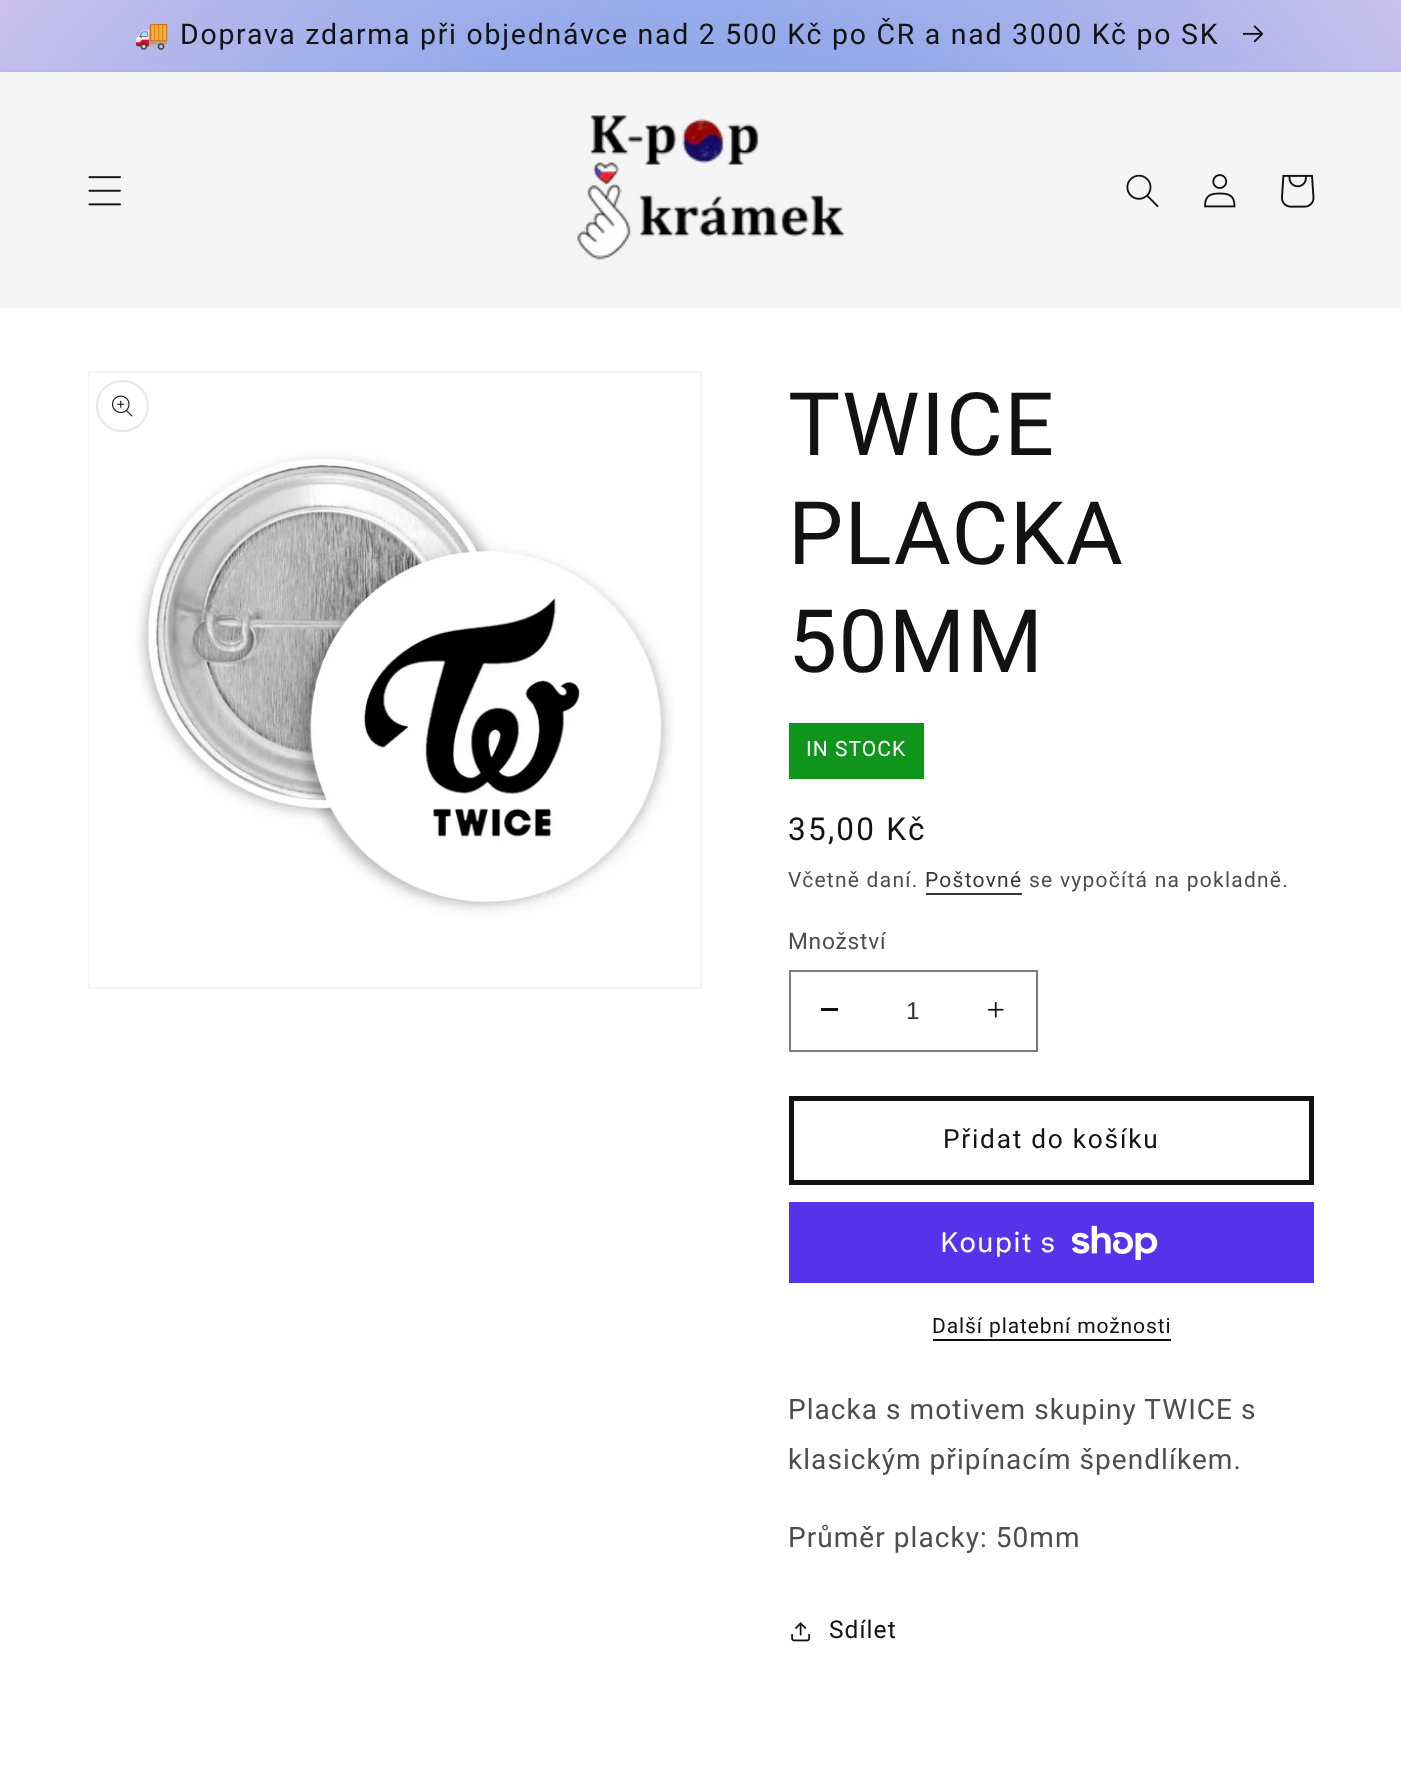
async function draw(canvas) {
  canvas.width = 1401;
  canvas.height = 1781;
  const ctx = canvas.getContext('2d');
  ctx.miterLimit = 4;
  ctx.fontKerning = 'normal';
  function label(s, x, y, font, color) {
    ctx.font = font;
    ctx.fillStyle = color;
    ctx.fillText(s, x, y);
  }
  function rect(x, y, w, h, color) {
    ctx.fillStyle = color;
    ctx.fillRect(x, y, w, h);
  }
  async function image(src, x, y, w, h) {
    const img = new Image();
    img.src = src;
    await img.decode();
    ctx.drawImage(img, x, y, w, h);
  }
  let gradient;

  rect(0, 0, 1401, 1781, '#fff');
  gradient = ctx.createRadialGradient(701, 700.78, 0, 701, 700.78, 991);
  gradient.addColorStop(0, '#207ef3');
  gradient.addColorStop(1, '#d7ccfa');
  gradient.addColorStop(1, '#f7c5cc');
  ctx.fillStyle = gradient;
  ctx.beginPath();
  ctx.rect(0, 70, 1401, 2);
  ctx.save();
  ctx.clip();
  ctx.scale(1, 1260 / 991);
  ctx.fillRect(0, 0, 1401, 1401);
  ctx.restore();
  gradient = ctx.createRadialGradient(701, 700.78, 0, 701, 700.78, 991);
  gradient.addColorStop(0, '#1f78e6');
  gradient.addColorStop(1, '#cbc1ec');
  gradient.addColorStop(1, '#e9bac1');
  ctx.fillStyle = gradient;
  ctx.beginPath();
  ctx.rect(0, 0, 1401, 70);
  ctx.save();
  ctx.clip();
  ctx.scale(1, 1260 / 991);
  ctx.fillRect(0, 0, 1401, 1401);
  ctx.restore();
  rect(0, 70, 1401, 2, '#12121214');
  ctx.letterSpacing = '1.75px';
  label('🚚', 134, 44, '28.45px Noto Color Emoji', '#121212');
  label('Doprava zdarma při objednávce nad 2 500 Kč po ČR a nad 3000 Kč po SK', 180, 44, '28.45px Roboto', '#121212');
  await image('assets/img1.png', 1243, 25, 21, 18);
  rect(0, 72, 1401, 236, '#f5f5f5');
  await image('assets/img2.png', 88, 176, 33, 30);
  await image('assets/img3.png', 577, 115, 268, 145);
  await image('assets/img4.png', 1126, 174, 33, 34);
  await image('assets/img5.png', 1204, 174, 32, 34);
  await image('assets/img6.png', 1281, 174, 34, 34);
  ctx.strokeStyle = '#f3f3f3';
  ctx.lineWidth = 2;
  ctx.strokeRect(89, 372, 612, 616);
  await image('assets/img7.png', 89, 373, 584, 614);
  ctx.beginPath();
  ctx.roundRect(97, 381, 51, 50, 25);
  ctx.strokeStyle = '#e7e7e7';
  ctx.stroke();
  await image('assets/img8.png', 112, 395, 21, 22);
  ctx.letterSpacing = '1.25px';
  label('TWICE', 788, 455, '87.5px Roboto', '#121212');
  label('PLACKA', 788, 564, '87.5px Roboto', '#121212');
  label('50MM', 788, 672, '87.5px Roboto', '#121212');
  rect(789, 723, 135, 56, '#0f941c');
  ctx.letterSpacing = '1.05px';
  label('IN STOCK', 806, 756, '21px Roboto', '#fff');
  ctx.letterSpacing = '2.25px';
  label('35,00 Kč', 788, 840, '31.5px Roboto', '#121212');
  ctx.letterSpacing = '1.25px';
  label('Včetně daní.', 788, 887, '21px Roboto', '#4d4d4d');
  label('Poštovné', 925, 887, '21px Roboto', '#363636');
  rect(926, 893, 96, 2, '#363636');
  label('se vypočítá na pokladně.', 1029, 887, '21px Roboto', '#4d4d4d');
  ctx.letterSpacing = '0.75px';
  label('Množství', 788, 949, '22.75px Roboto', '#4d4d4d');
  rect(821, 1008, 17, 3, '#121212');
  await image('assets/img9.png', 987, 1001, 17, 17);
  ctx.strokeStyle = '#7d7d7d';
  ctx.strokeRect(790, 971, 247, 80);
  ctx.letterSpacing = '0px';
  label('1', 906, 1019, '24.5px Liberation Sans', '#363636');
  ctx.strokeStyle = '#121212';
  ctx.lineWidth = 5;
  ctx.strokeRect(791.5, 1098.5, 520, 84);
  ctx.letterSpacing = '1.75px';
  label('Přidat do košíku', 943, 1148, '26.25px Roboto', '#121212');
  rect(789, 1202, 525, 81, '#5433eb');
  ctx.letterSpacing = '1.05px';
  label('Koupit s', 940, 1252, '28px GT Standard', '#fff');
  await image('assets/img10.png', 1072, 1225, 86, 35);
  ctx.letterSpacing = '0.9px';
  label('Další platební možnosti', 932, 1333, '21px Roboto', '#121212');
  rect(933, 1339, 238, 2, '#121212');
  ctx.letterSpacing = '1.05px';
  label('Placka s motivem skupiny TWICE s', 788, 1419, '28px Roboto', '#4d4d4d');
  label('klasickým připínacím špendlíkem.', 788, 1469, '28px Roboto', '#4d4d4d');
  label('Průměr placky: 50mm', 788, 1547, '28px Roboto', '#4d4d4d');
  await image('assets/img11.png', 791, 1622, 20, 20);
  label('Sdílet', 829, 1638, '24.5px Roboto', '#121212');
}

draw(document.querySelector('canvas'));
